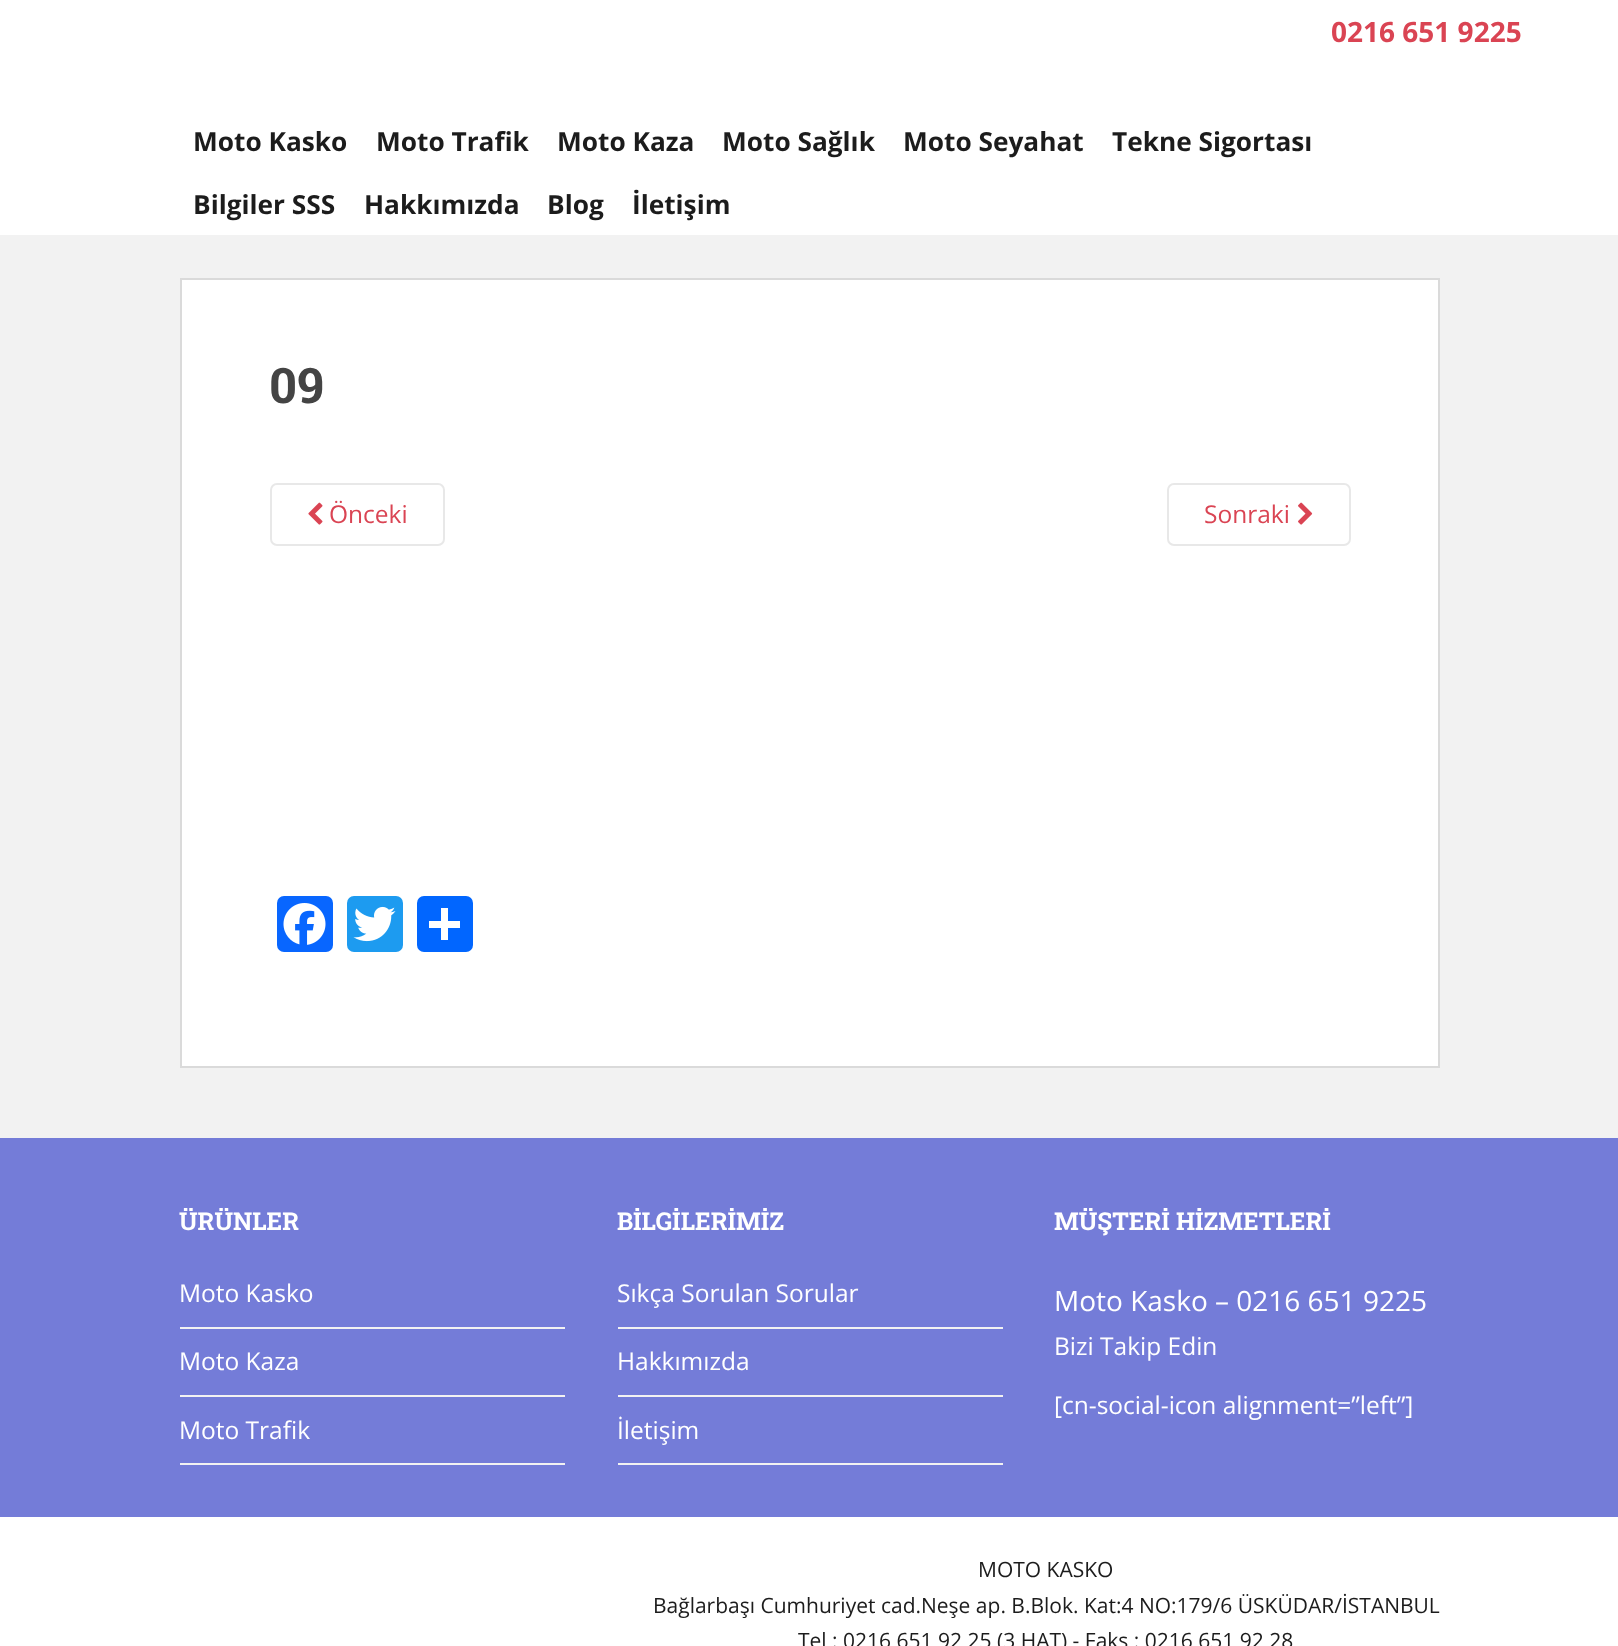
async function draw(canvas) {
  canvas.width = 1618;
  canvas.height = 1646;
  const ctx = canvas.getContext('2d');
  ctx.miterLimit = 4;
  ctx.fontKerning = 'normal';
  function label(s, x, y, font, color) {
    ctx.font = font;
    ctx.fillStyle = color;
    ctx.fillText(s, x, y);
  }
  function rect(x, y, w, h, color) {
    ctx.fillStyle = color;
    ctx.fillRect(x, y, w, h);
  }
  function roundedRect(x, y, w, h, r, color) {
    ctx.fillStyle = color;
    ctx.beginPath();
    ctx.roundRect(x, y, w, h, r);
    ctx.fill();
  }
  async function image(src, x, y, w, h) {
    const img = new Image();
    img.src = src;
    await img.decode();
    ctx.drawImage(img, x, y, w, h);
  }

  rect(0, 0, 1618, 1646, '#f2f2f2');
  rect(0, 0, 1618, 235, '#fff');
  label('0216 651 9225', 1331, 42, 'bold 28px Open Sans', '#da4453');
  label('Moto Kasko', 193, 151, 'bold 26.25px Open Sans', '#1c1c1c');
  label('Moto Trafik', 376, 151, 'bold 26.25px Open Sans', '#1c1c1c');
  label('Moto Kaza', 557, 151, 'bold 26.25px Open Sans', '#1c1c1c');
  label('Moto Sağlık', 722, 151, 'bold 26.25px Open Sans', '#1c1c1c');
  label('Moto Seyahat', 903, 151, 'bold 26.25px Open Sans', '#1c1c1c');
  label('Tekne Sigortası', 1112, 151, 'bold 26.25px Open Sans', '#1c1c1c');
  label('Bilgiler SSS', 193, 214, 'bold 26.25px Open Sans', '#1c1c1c');
  label('Hakkımızda', 364, 214, 'bold 26.25px Open Sans', '#1c1c1c');
  label('Blog', 547, 214, 'bold 26.25px Open Sans', '#1c1c1c');
  label('İletişim', 632, 214, 'bold 26.25px Open Sans', '#1c1c1c');
  ctx.fillStyle = '#fff';
  ctx.beginPath();
  ctx.rect(181, 279, 1258, 788);
  ctx.fill();
  ctx.strokeStyle = '#dadada';
  ctx.lineWidth = 2;
  ctx.stroke();
  label('09', 269, 403, 'bold 49px Roboto Slab', '#444');
  ctx.beginPath();
  ctx.roundRect(271, 484, 173, 61, 6);
  ctx.strokeStyle = '#e8e8e8';
  ctx.stroke();
  await image('assets/img1.png', 308, 502, 15, 23);
  label('Önceki', 329, 523, '24.5px Open Sans', '#da4453');
  ctx.beginPath();
  ctx.roundRect(1168, 484, 182, 61, 6);
  ctx.stroke();
  label('Sonraki', 1204, 523, '24.5px Open Sans', '#da4453');
  await image('assets/img2.png', 1298, 502, 15, 23);
  roundedRect(277, 896, 56, 56, 7, '#0866ff');
  await image('assets/img3.png', 283, 903, 43, 42);
  roundedRect(347, 896, 56, 56, 7, '#1d9bf0');
  await image('assets/img4.png', 353, 906, 43, 36);
  roundedRect(417, 896, 56, 56, 7, '#0166ff');
  rect(441, 908, 7, 32, '#fff');
  rect(429, 921, 31, 7, '#fff');
  rect(0, 1138, 1618, 379, '#747cd8');
  label('ÜRÜNLER', 179, 1230, 'bold 24.5px Roboto Slab', '#fff');
  rect(180, 1327, 385, 2, '#f2f2f2');
  label('Moto Kasko', 179, 1302, '24.5px Open Sans', '#fff');
  rect(180, 1395, 385, 2, '#f2f2f2');
  label('Moto Kaza', 179, 1370, '24.5px Open Sans', '#fff');
  rect(180, 1463, 385, 2, '#f2f2f2');
  label('Moto Trafik', 179, 1439, '24.5px Open Sans', '#fff');
  label('BİLGİLERİMİZ', 617, 1230, 'bold 24.5px Roboto Slab', '#fff');
  rect(618, 1327, 385, 2, '#f2f2f2');
  label('Sıkça Sorulan Sorular', 617, 1302, '24.5px Open Sans', '#fff');
  rect(618, 1395, 385, 2, '#f2f2f2');
  label('Hakkımızda', 617, 1370, '24.5px Open Sans', '#fff');
  rect(618, 1463, 385, 2, '#f2f2f2');
  label('İletişim', 617, 1439, '24.5px Open Sans', '#fff');
  label('MÜŞTERİ HİZMETLERİ', 1054, 1230, 'bold 24.5px Roboto Slab', '#fff');
  label('Moto Kasko – 0216 651 9225', 1054, 1311, '28px Open Sans', '#fff');
  label('Bizi Takip Edin', 1054, 1355, '24.5px Open Sans', '#fff');
  label('[cn-social-icon alignment=”left”]', 1054, 1414, '24.5px Open Sans', '#fff');
  rect(0, 1517, 1618, 129, '#fff');
  label('MOTO KASKO', 978, 1577, '21px Open Sans', '#1c1c1c');
  label('Bağlarbaşı Cumhuriyet cad.Neşe ap. B.Blok. Kat:4 NO:179/6 ÜSKÜDAR/İSTANBUL', 653, 1613, '21px Open Sans', '#1c1c1c');
  label('Tel : 0216 651 92 25 (3 HAT) - Faks : 0216 651 92 28', 798, 1648, '21px Open Sans', '#1c1c1c');
}

draw(document.querySelector('canvas'));
